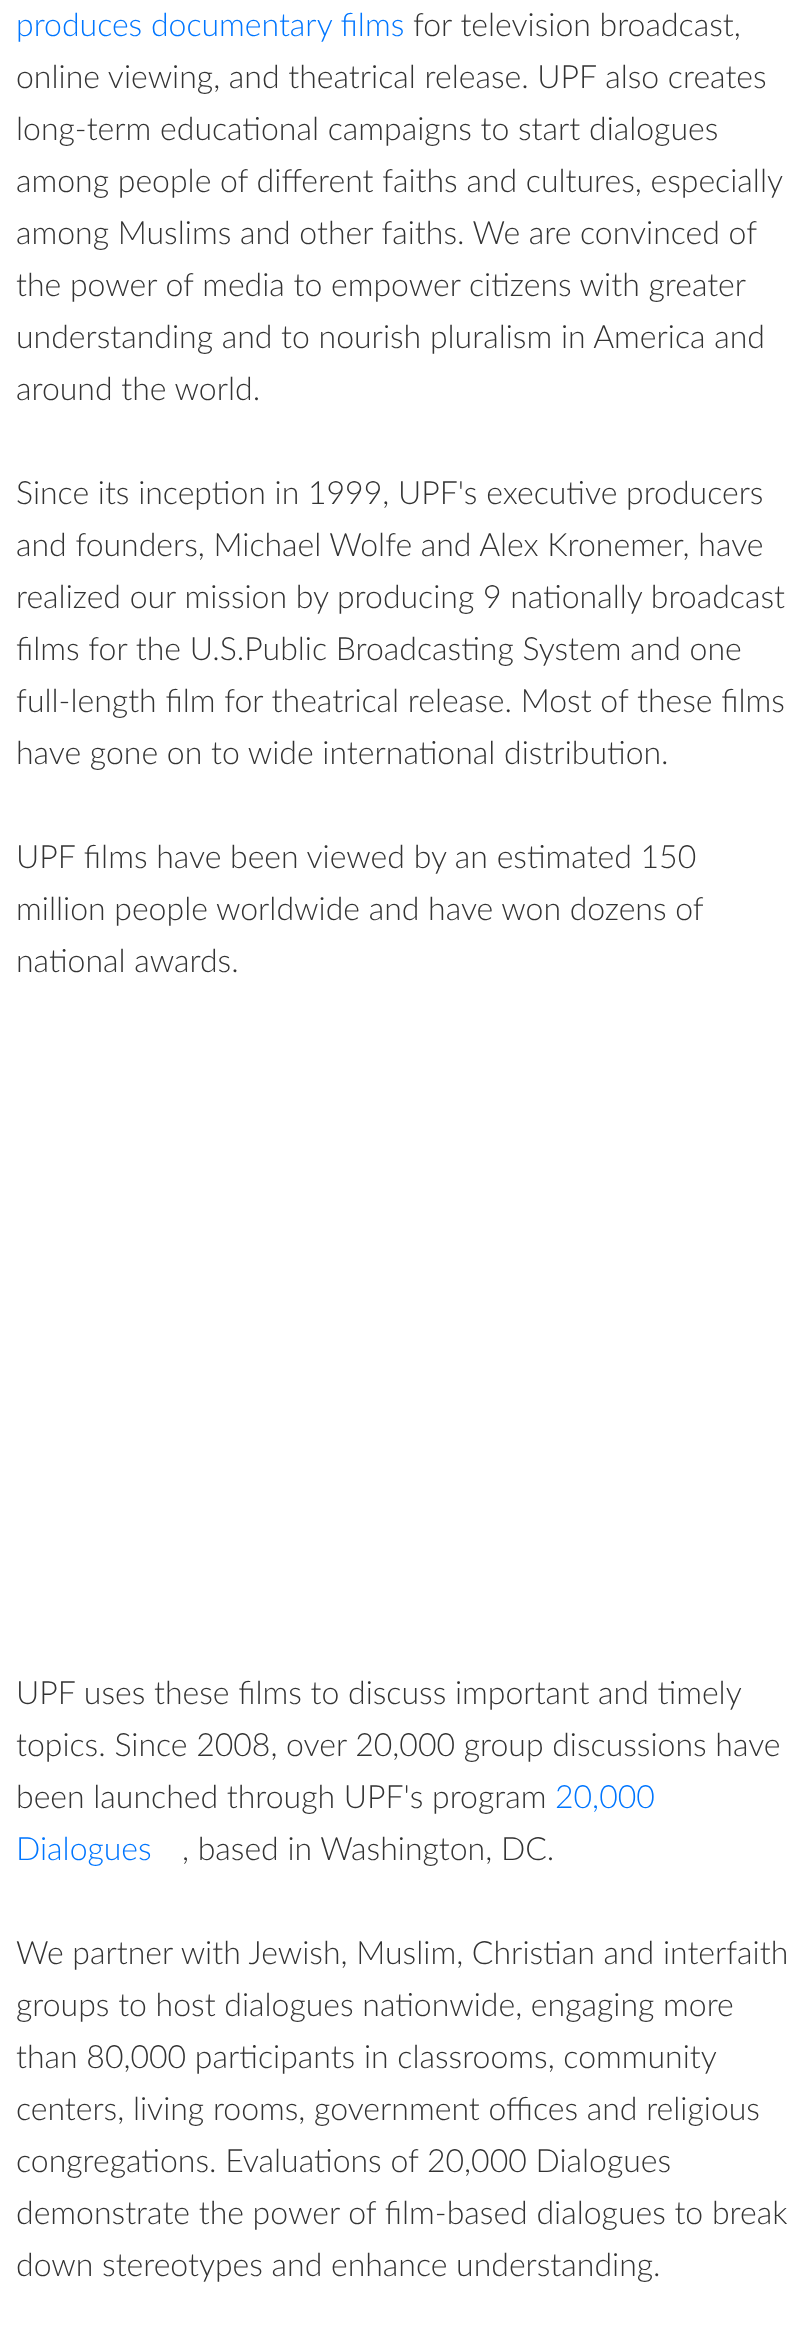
async function draw(canvas) {
  canvas.width = 810;
  canvas.height = 2342;
  const ctx = canvas.getContext('2d');
  ctx.miterLimit = 4;
  ctx.fontKerning = 'normal';
  function label(s, x, y, font, color) {
    ctx.font = font;
    ctx.fillStyle = color;
    ctx.fillText(s, x, y);
  }
  function rect(x, y, w, h, color) {
    ctx.fillStyle = color;
    ctx.fillRect(x, y, w, h);
  }

  rect(0, 0, 810, 2342, '#fff');
  label('produces documentary films', 16, 36, '300 32px Lato', '#0076ff');
  label('for television broadcast,', 413, 36, '300 32px Lato', '#333');
  label('online viewing, and theatrical release. UPF also creates', 16, 88, '300 32px Lato', '#333');
  label('long-term educational campaigns to start dialogues', 16, 140, '300 32px Lato', '#333');
  label('among people of different faiths and cultures, especially', 16, 192, '300 32px Lato', '#333');
  label('among Muslims and other faiths. We are convinced of', 16, 244, '300 32px Lato', '#333');
  label('the power of media to empower citizens with greater', 16, 296, '300 32px Lato', '#333');
  label('understanding and to nourish pluralism in America and', 16, 348, '300 32px Lato', '#333');
  label('around the world.', 16, 400, '300 32px Lato', '#333');
  label('Since its inception in 1999, UPF\'s executive producers', 16, 504, '300 32px Lato', '#333');
  label('and founders, Michael Wolfe and Alex Kronemer, have', 16, 556, '300 32px Lato', '#333');
  label('realized our mission by producing 9 nationally broadcast', 16, 608, '300 32px Lato', '#333');
  label('films for the U.S.Public Broadcasting System and one', 16, 660, '300 32px Lato', '#333');
  label('full-length film for theatrical release. Most of these films', 16, 712, '300 32px Lato', '#333');
  label('have gone on to wide international distribution.', 16, 764, '300 32px Lato', '#333');
  label('UPF films have been viewed by an estimated 150', 16, 868, '300 32px Lato', '#333');
  label('million people worldwide and have won dozens of', 16, 920, '300 32px Lato', '#333');
  label('national awards.', 16, 972, '300 32px Lato', '#333');
  label('UPF uses these films to discuss important and timely', 16, 1704, '300 32px Lato', '#333');
  label('topics. Since 2008, over 20,000 group discussions have', 16, 1756, '300 32px Lato', '#333');
  label('been launched through UPF\'s program', 16, 1808, '300 32px Lato', '#333');
  label('20,000', 555, 1808, '300 32px Lato', '#0076ff');
  label('Dialogues', 16, 1860, '300 32px Lato', '#0076ff');
  label(', based in Washington, DC.', 182, 1860, '300 32px Lato', '#333');
  label('We partner with Jewish, Muslim, Christian and interfaith', 16, 1964, '300 32px Lato', '#333');
  label('groups to host dialogues nationwide, engaging more', 16, 2016, '300 32px Lato', '#333');
  label('than 80,000 participants in classrooms, community', 16, 2068, '300 32px Lato', '#333');
  label('centers, living rooms, government offices and religious', 16, 2120, '300 32px Lato', '#333');
  label('congregations. Evaluations of 20,000 Dialogues', 16, 2172, '300 32px Lato', '#333');
  label('demonstrate the power of film-based dialogues to break', 16, 2224, '300 32px Lato', '#333');
  label('down stereotypes and enhance understanding.', 16, 2276, '300 32px Lato', '#333');
}

draw(document.querySelector('canvas'));
